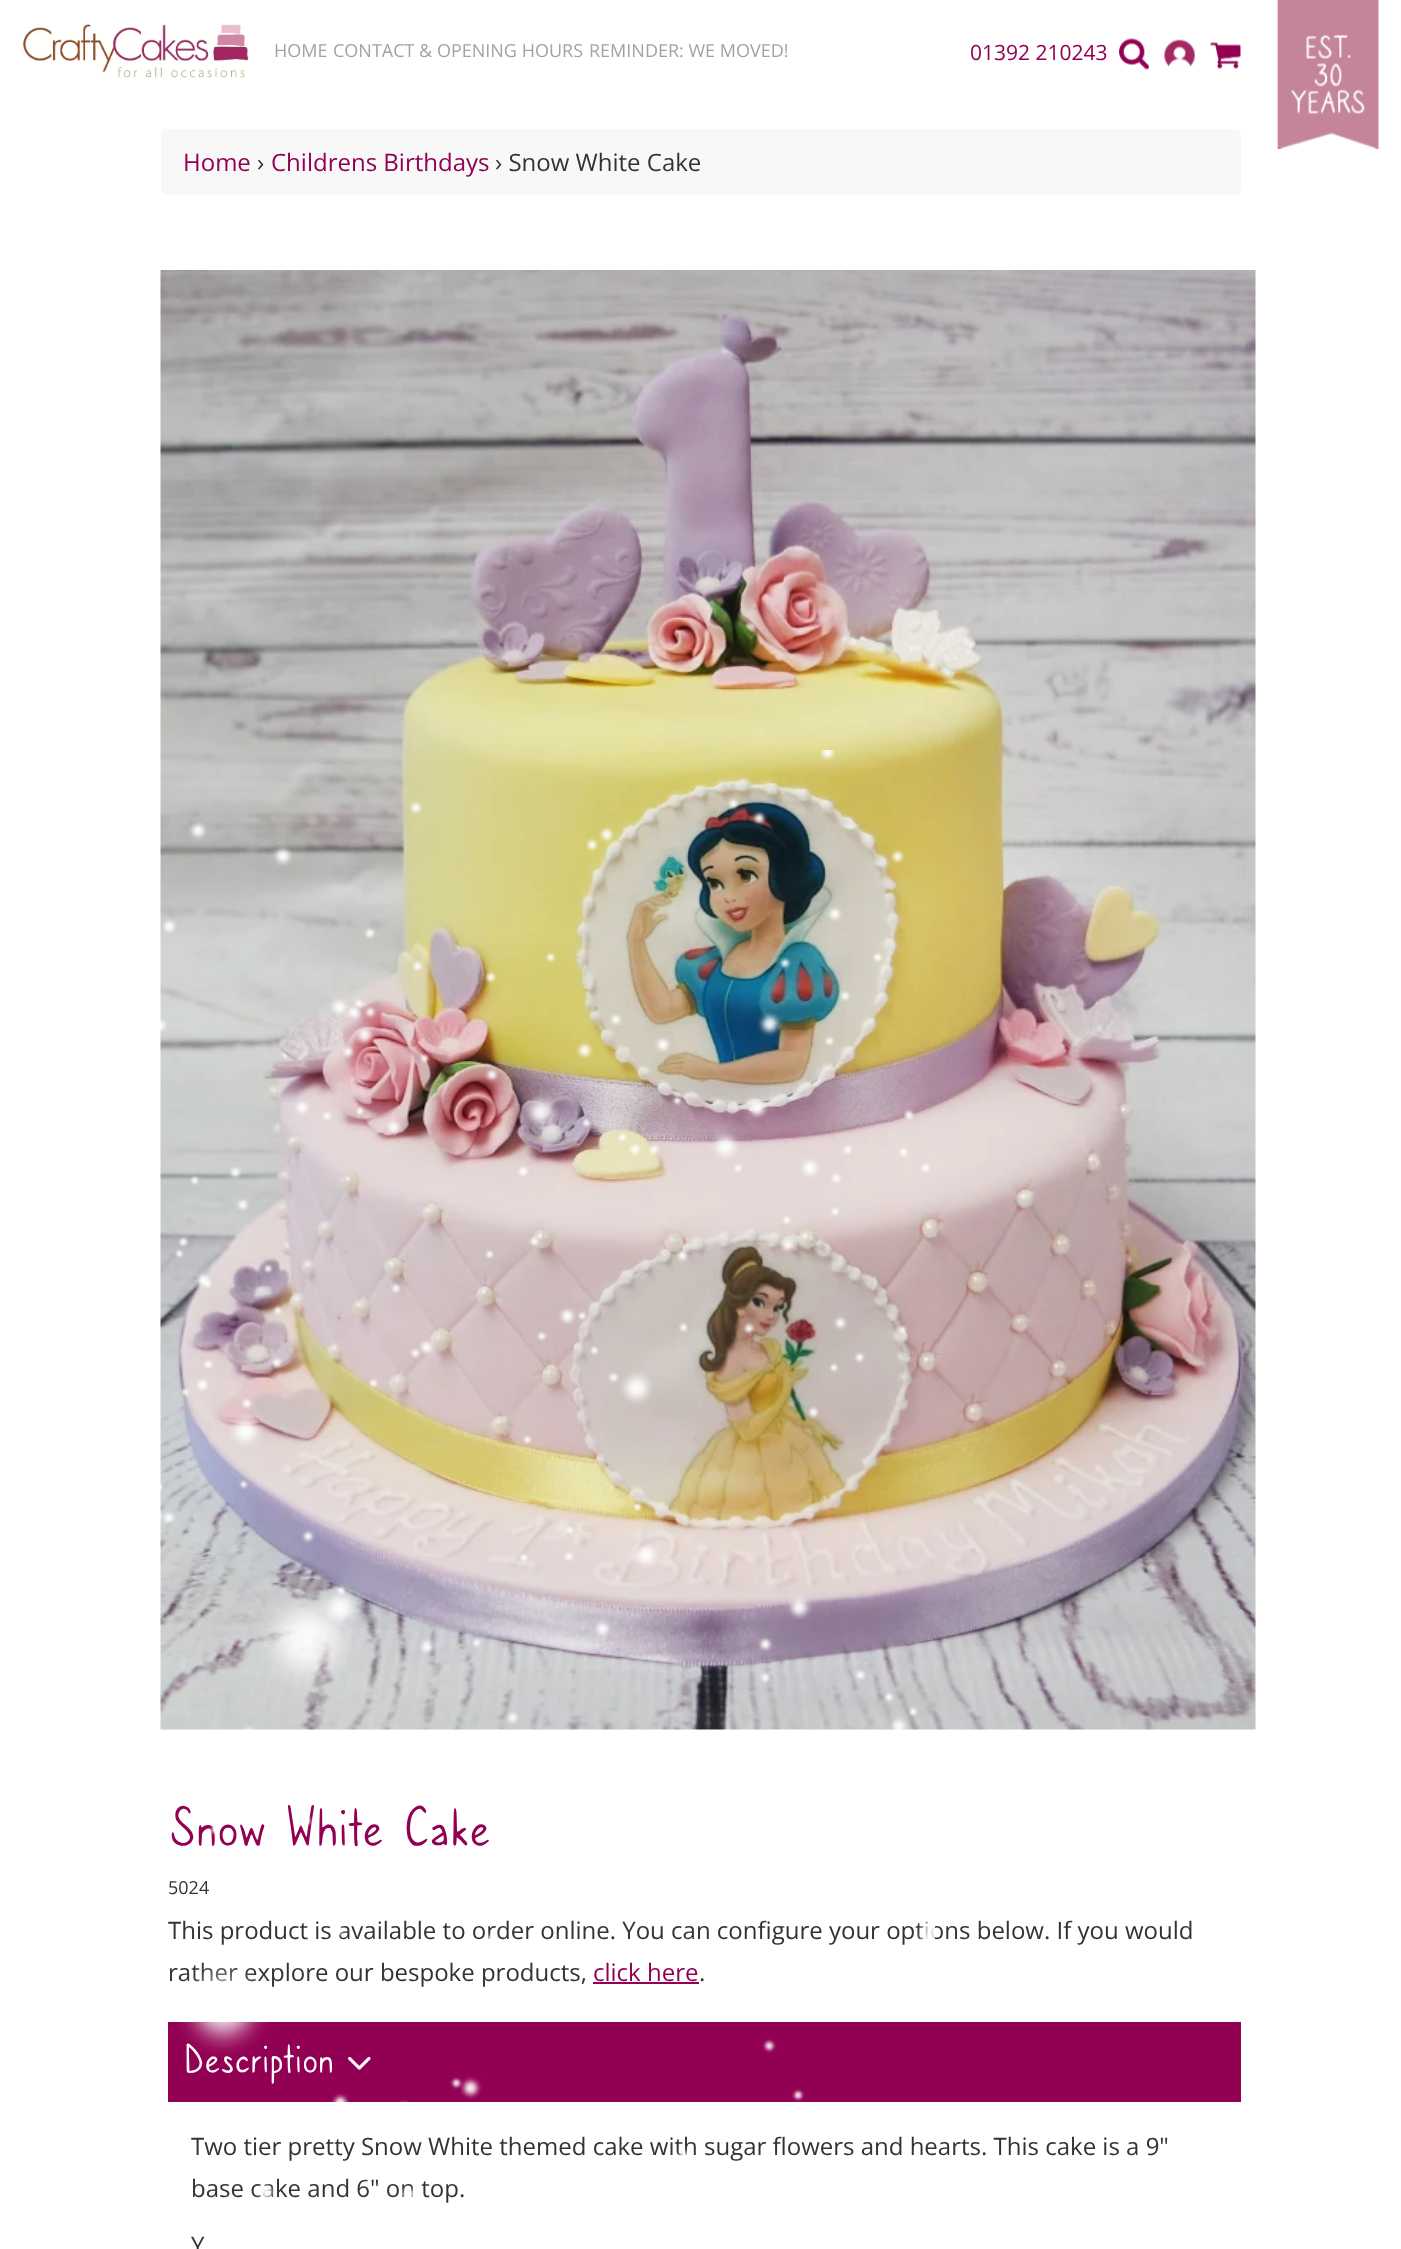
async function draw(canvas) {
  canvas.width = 1401;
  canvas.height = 2249;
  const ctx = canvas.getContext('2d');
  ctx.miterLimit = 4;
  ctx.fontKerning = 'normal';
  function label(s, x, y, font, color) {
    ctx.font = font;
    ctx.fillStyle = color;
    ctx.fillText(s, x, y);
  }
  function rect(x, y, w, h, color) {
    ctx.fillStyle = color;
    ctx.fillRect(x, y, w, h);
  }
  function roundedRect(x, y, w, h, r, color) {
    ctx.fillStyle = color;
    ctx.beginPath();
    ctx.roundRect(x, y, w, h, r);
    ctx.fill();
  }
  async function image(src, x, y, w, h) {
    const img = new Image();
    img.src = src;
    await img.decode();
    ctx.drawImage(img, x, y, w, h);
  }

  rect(0, 0, 1401, 2249, '#fff');
  await image('assets/img1.png', 22, 24, 227, 54);
  label('HOME', 274, 57, '18px Open Sans', '#a2a2a2');
  label('CONTACT & OPENING HOURS', 333, 57, '18px Open Sans', '#a2a2a2');
  label('REMINDER: WE MOVED!', 589, 57, '18px Open Sans', '#a2a2a2');
  label('01392 210243', 970, 60, '21px Open Sans', '#920053');
  await image('assets/img2.png', 1119, 38, 30, 32);
  await image('assets/img3.png', 1164, 39, 31, 32);
  await image('assets/img4.png', 1210, 41, 31, 28);
  await image('assets/img5.png', 1276, 0, 103, 149);
  roundedRect(161, 129, 1080, 66, 6, '#f8f8f8');
  label('Home', 183, 171, '24px Open Sans', '#920053');
  label('›', 257, 171, '24px Open Sans', '#333');
  label('Childrens Birthdays', 271, 171, '24px Open Sans', '#920053');
  label('› Snow White Cake', 495, 171, '24px Open Sans', '#333');
  await image('assets/img6.png', 160, 270, 1096, 1460);
  label('Snow White Cake', 168, 1849, '60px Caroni', '#920053');
  label('5024', 168, 1894, '18px Open Sans', '#333');
  label('This product is available to order online. You can configure your options below. If you would', 168, 1939, '24px Open Sans', '#333');
  label('rather explore our bespoke products,', 168, 1981, '24px Open Sans', '#333');
  label('click here', 593, 1981, '24px Open Sans', '#920053');
  rect(593, 1982, 106, 2, '#920053');
  label('.', 699, 1981, '24px Open Sans', '#333');
  rect(168, 2022, 1073, 80, '#920053');
  label('Description', 183, 2075, '45px Caroni', '#fff');
  await image('assets/img7.png', 348, 2056, 23, 14);
  label('Two tier pretty Snow White themed cake with sugar flowers and hearts. This cake is a 9"', 191, 2155, '24px Open Sans', '#333');
  label('base cake and 6" on top.', 191, 2197, '24px Open Sans', '#333');
  label('Y', 191, 2254, '24px Open Sans', '#333');
  await image('assets/img8.png', 160, 750, 775, 1448);
}

draw(document.querySelector('canvas'));
